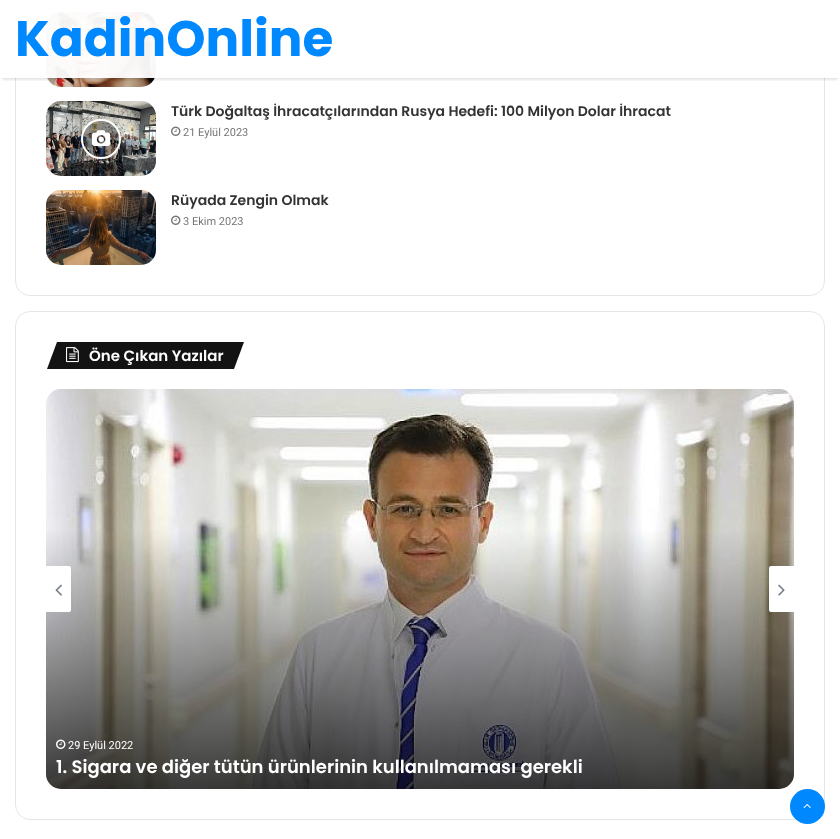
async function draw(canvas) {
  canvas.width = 840;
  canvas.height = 839;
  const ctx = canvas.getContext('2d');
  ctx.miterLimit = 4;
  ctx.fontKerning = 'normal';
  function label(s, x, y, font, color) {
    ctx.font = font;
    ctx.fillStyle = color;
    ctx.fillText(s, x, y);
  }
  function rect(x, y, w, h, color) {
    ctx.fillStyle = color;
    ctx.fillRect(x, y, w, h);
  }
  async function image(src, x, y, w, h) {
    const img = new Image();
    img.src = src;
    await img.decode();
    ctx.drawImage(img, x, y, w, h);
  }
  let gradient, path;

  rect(0, 0, 840, 839, '#fff');
  ctx.beginPath();
  ctx.roundRect(15.5, -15.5, 809, 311, 14.5);
  ctx.strokeStyle = '#e6e6e6';
  ctx.stroke();
  await image('assets/img1.png', 46, 12, 110, 75);
  await image('assets/img2.png', 171, 37, 10, 10);
  ctx.save();
  ctx.beginPath();
  ctx.rect(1, 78, 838, 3);
  ctx.clip();
  ctx.fillStyle = '#0000001a';
  ctx.filter = 'blur(1px)';
  ctx.beginPath();
  ctx.rect(2, 6, 836, 74);
  ctx.fill();
  ctx.filter = 'none';
  ctx.restore();
  rect(15, 0, 810, 78, '#fffffff2');
  label('KadinOnline', 15, 56, 'bold 50px Poppins', '#08f');
  await image('assets/img3.png', 46, 101, 110, 75);
  ctx.fillStyle = '#0000004d';
  ctx.beginPath();
  ctx.arc(101, 139, 19, 0, 2 * Math.PI);
  ctx.fill();
  ctx.strokeStyle = '#fff';
  ctx.lineWidth = 2;
  ctx.stroke();
  await image('assets/img4.png', 92, 130, 19, 16);
  label('Türk Doğaltaş İhracatçılarından Rusya Hedefi: 100 Milyon Dolar İhracat', 171, 116, '600 14px Poppins', '#333');
  await image('assets/img2.png', 171, 126, 10, 10);
  label('21 Eylül 2023', 183, 136, '11px Roboto', '#767676');
  await image('assets/img5.png', 46, 190, 110, 75);
  label('Rüyada Zengin Olmak', 171, 205, '600 14px Poppins', '#333');
  await image('assets/img2.png', 171, 215, 10, 10);
  label('3 Ekim 2023', 183, 225, '11px Roboto', '#767676');
  ctx.beginPath();
  ctx.roundRect(15.5, 311.5, 809, 508, 14.5);
  ctx.strokeStyle = '#e6e6e6';
  ctx.lineWidth = 1;
  ctx.stroke();
  ctx.fillStyle = '#131313';
  path = new Path2D('M57 342H244L234 369H47Z');
  ctx.fill(path);
  await image('assets/img6.png', 66, 347, 13, 16);
  label('Öne Çıkan Yazılar', 89, 361, '600 15px Poppins', '#fff');
  await image('assets/img9.png', 46, 389, 748, 400);
  gradient = ctx.createLinearGradient(420, 529, 420, 789);
  gradient.addColorStop(0, '#00000000');
  gradient.addColorStop(1, '#000000bf');
  ctx.fillStyle = gradient;
  ctx.beginPath();
  ctx.roundRect(46, 529, 748, 260, [0, 0, 15, 15]);
  ctx.fill();
  ctx.fillStyle = '#fff';
  ctx.beginPath();
  ctx.roundRect(46, 566, 25, 46, [0, 2, 2, 0]);
  ctx.fill();
  await image('assets/img7.png', 55, 584, 7, 12);
  ctx.beginPath();
  ctx.roundRect(769, 566, 25, 46, [2, 0, 0, 2]);
  ctx.fill();
  await image('assets/img8.png', 778, 584, 7, 12);
  await image('assets/img10.png', 56, 739, 10, 10);
  label('29 Eylül 2022', 68, 749, '11px Roboto', '#fff');
  label('1. Sigara ve diğer tütün ürünlerinin kullanılmaması gerekli', 56, 773, '600 18px Poppins', '#fff');
  ctx.fillStyle = '#08f';
  ctx.beginPath();
  ctx.arc(807.5, 806.5, 17.5, 0, 2 * Math.PI);
  ctx.fill();
  await image('assets/img11.png', 803, 803, 8, 6);
}

draw(document.querySelector('canvas'));
